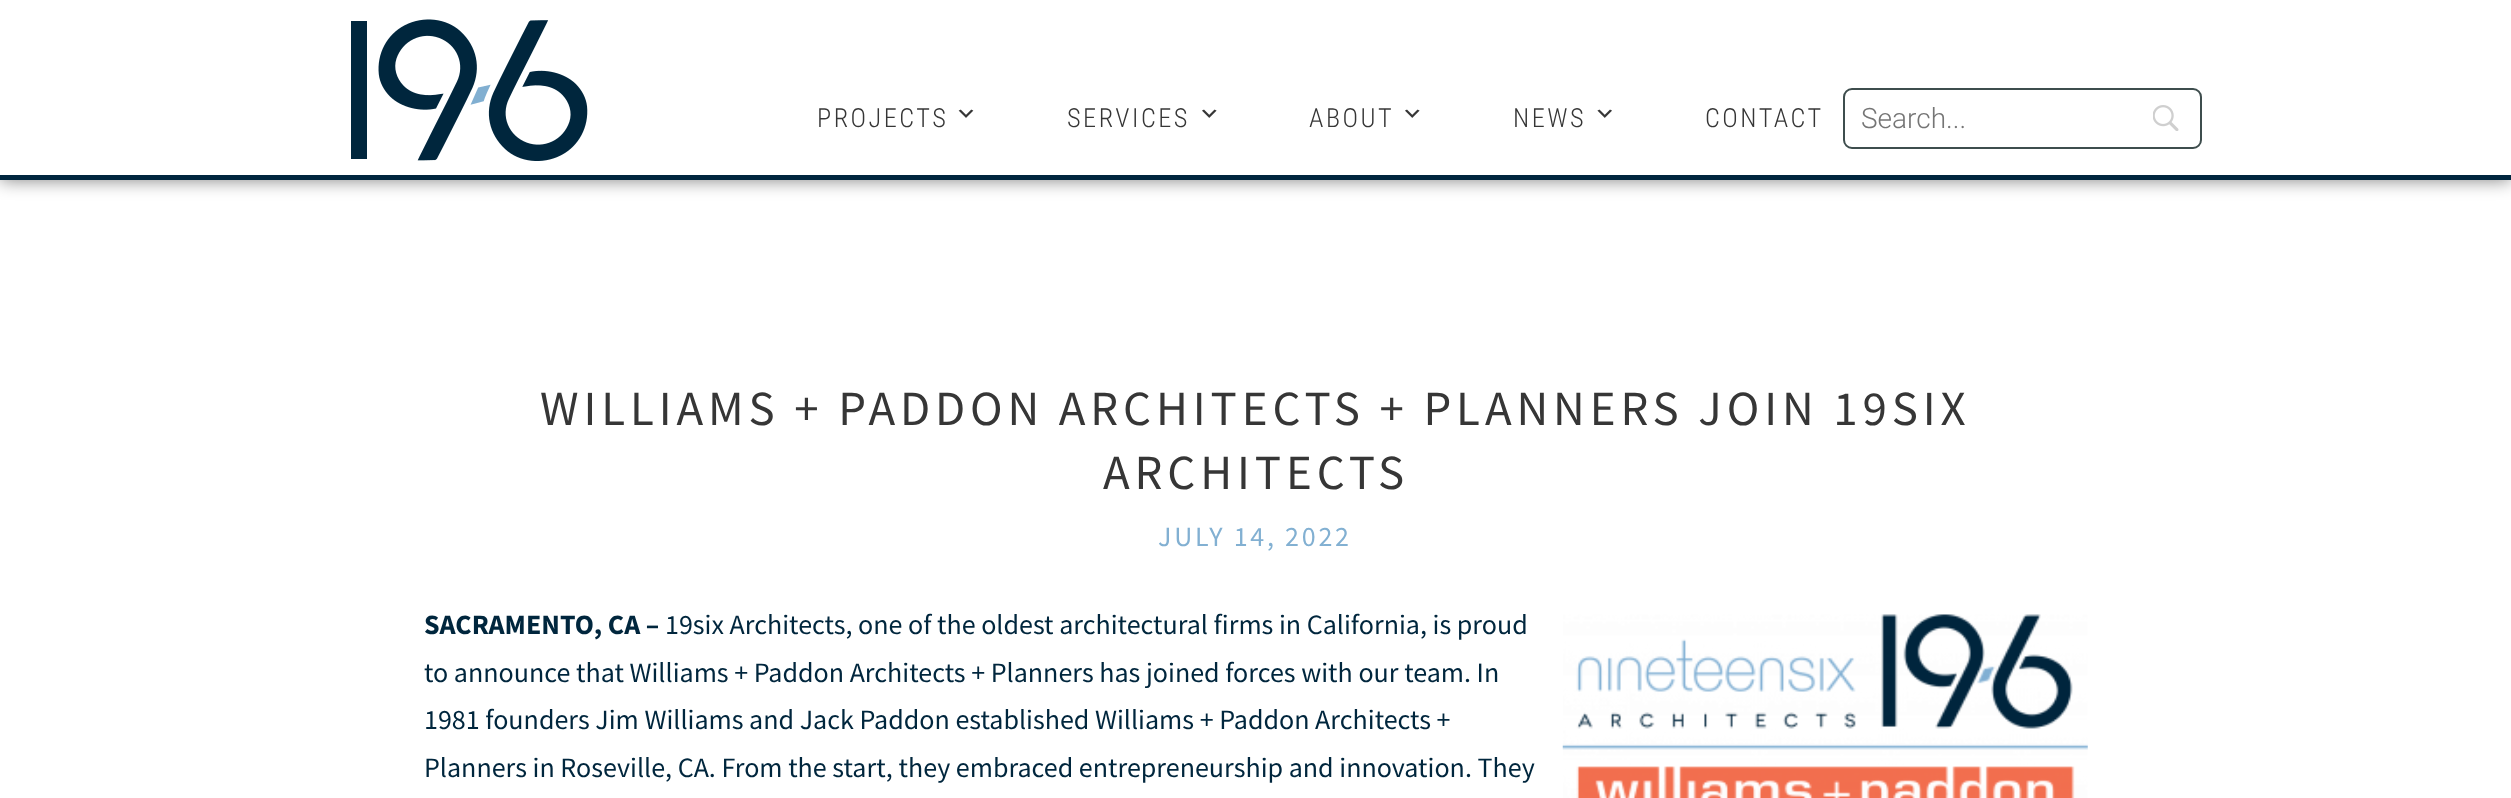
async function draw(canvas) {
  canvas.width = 2511;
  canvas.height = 798;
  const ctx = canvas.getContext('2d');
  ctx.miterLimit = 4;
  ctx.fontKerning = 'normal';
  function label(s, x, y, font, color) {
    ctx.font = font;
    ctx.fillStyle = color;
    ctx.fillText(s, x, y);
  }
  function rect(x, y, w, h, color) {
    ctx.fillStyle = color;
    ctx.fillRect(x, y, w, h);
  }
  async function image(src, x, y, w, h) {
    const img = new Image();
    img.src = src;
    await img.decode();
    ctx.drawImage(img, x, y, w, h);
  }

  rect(0, 0, 2511, 798, '#fff');
  ctx.fillStyle = '#00000080';
  ctx.filter = 'blur(9px)';
  ctx.beginPath();
  ctx.rect(0, 0, 2511, 180);
  ctx.fill();
  ctx.filter = 'none';
  rect(0, 0, 2511, 175, '#fff');
  rect(0, 175, 2511, 5, '#00263e');
  await image('assets/img1.png', 351, 19, 237, 142);
  ctx.letterSpacing = '2.5px';
  label('PROJECTS', 817, 127, '300 26.25px Roboto Condensed', '#363636');
  await image('assets/img2.png', 958, 109, 16, 9);
  label('SERVICES', 1067, 127, '300 26.25px Roboto Condensed', '#363636');
  await image('assets/img3.png', 1202, 109, 15, 9);
  label('ABOUT', 1309, 127, '300 26.25px Roboto Condensed', '#363636');
  await image('assets/img3.png', 1405, 109, 15, 9);
  label('NEWS', 1513, 127, '300 26.25px Roboto Condensed', '#363636');
  await image('assets/img4.png', 1597, 109, 15, 9);
  label('CONTACT', 1705, 127, '300 26.25px Roboto Condensed', '#363636');
  await image('assets/img5.png', 2153, 105, 26, 26);
  ctx.beginPath();
  ctx.roundRect(1844, 89, 357, 59, 8);
  ctx.strokeStyle = '#3e4d4d';
  ctx.lineWidth = 2;
  ctx.stroke();
  ctx.letterSpacing = '0px';
  label('Search...', 1861, 128, '300 28px Roboto', '#757575');
  ctx.letterSpacing = '4.9px';
  label('WILLIAMS + PADDON ARCHITECTS + PLANNERS JOIN 19SIX', 540, 425, '49px Source Sans Pro', '#363636');
  label('ARCHITECTS', 1103, 489, '49px Source Sans Pro', '#363636');
  ctx.letterSpacing = '2.75px';
  label('JULY 14, 2022', 1158, 546, '28px Source Sans Pro', '#82b0d2');
  ctx.letterSpacing = '0px';
  label('SACRAMENTO, CA –', 424, 634, 'bold 28px Source Sans Pro', '#00263d');
  label('19six Architects, one of the oldest architectural firms in California, is proud', 665, 634, '28px Source Sans Pro', '#00263d');
  label('to announce that Williams + Paddon Architects + Planners has joined forces with our team. In', 424, 682, '28px Source Sans Pro', '#00263d');
  label('1981 founders Jim Williams and Jack Paddon established Williams + Paddon Architects +', 424, 729, '28px Source Sans Pro', '#00263d');
  label('Planners in Roseville, CA. From the start, they embraced entrepreneurship and innovation. They', 424, 777, '28px Source Sans Pro', '#00263d');
  await image('assets/img6.png', 1562, 614, 526, 184);
}

draw(document.querySelector('canvas'));
